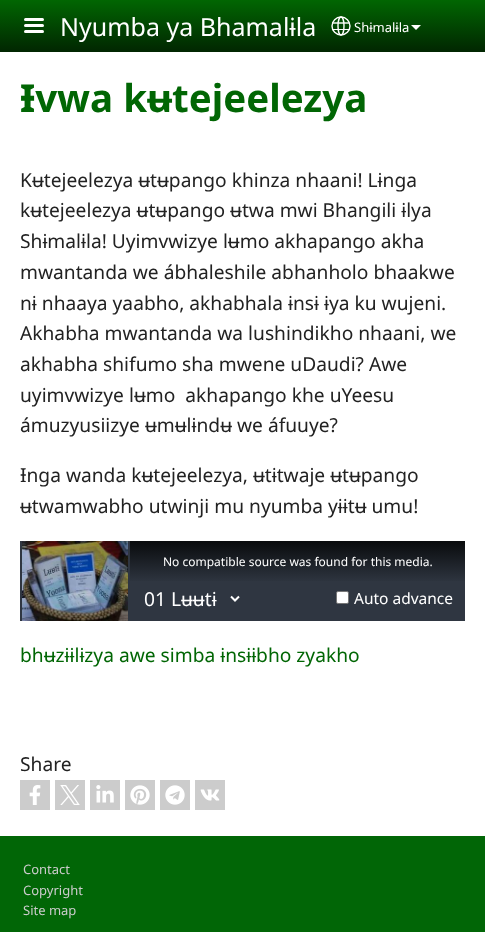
async function draw(canvas) {
  canvas.width = 485;
  canvas.height = 932;
  const ctx = canvas.getContext('2d');
  ctx.miterLimit = 4;
  ctx.fontKerning = 'normal';
  function label(s, x, y, font, color) {
    ctx.font = font;
    ctx.fillStyle = color;
    ctx.fillText(s, x, y);
  }
  function rect(x, y, w, h, color) {
    ctx.fillStyle = color;
    ctx.fillRect(x, y, w, h);
  }
  function roundedRect(x, y, w, h, r, color) {
    ctx.fillStyle = color;
    ctx.beginPath();
    ctx.roundRect(x, y, w, h, r);
    ctx.fill();
  }
  async function image(src, x, y, w, h) {
    const img = new Image();
    img.src = src;
    await img.decode();
    ctx.drawImage(img, x, y, w, h);
  }
  let gradient, path;

  rect(0, 0, 485, 932, '#fff');
  gradient = ctx.createLinearGradient(243, 0, 243, 52);
  gradient.addColorStop(0, '#016602');
  gradient.addColorStop(1, '#012601');
  ctx.fillStyle = gradient;
  ctx.fillRect(0, 0, 485, 52);
  roundedRect(24, 18, 20, 3, 1.5, '#fffffe');
  roundedRect(24, 24, 20, 3, 1.5, '#fffffe');
  roundedRect(24, 30, 20, 3, 1.5, '#fffffe');
  label('Nyumba ya Bhamalɨla', 60, 36, '25px Noto Sans', '#fff');
  ctx.beginPath();
  ctx.arc(341, 26, 9, 0, 2 * Math.PI);
  ctx.strokeStyle = '#fffffe';
  ctx.lineWidth = 1.4;
  ctx.stroke();
  ctx.beginPath();
  ctx.ellipse(341, 26, 3, 9, 0, 0, 2 * Math.PI);
  ctx.stroke();
  path = new Path2D('M332 23H349.5');
  ctx.stroke(path);
  rect(332, 29, 18, 1, '#fffffe');
  label('Shɨmalɨla', 354, 32, '13px Noto Sans', '#fff');
  ctx.fillStyle = '#fffffe';
  path = new Path2D('M411 25H421L416 30Z');
  ctx.fill(path);
  label('Ɨvwa kʉtejeelezya', 20, 112, 'bold 38.5px Noto Sans', '#016604');
  label('Kʉtejeelezya ʉtʉpango khinza nhaani! Lɨnga', 20, 187, '19.2px Noto Sans', '#222');
  label('kʉtejeelezya ʉtʉpango ʉtwa mwi Bhangili ɨlya', 20, 217, '19.2px Noto Sans', '#222');
  label('Shɨmalɨla! Uyimvwizye lʉmo akhapango akha', 20, 248, '19.2px Noto Sans', '#222');
  label('mwantanda we ábhaleshile abhanholo bhaakwe', 20, 279, '19.2px Noto Sans', '#222');
  label('nɨ nhaaya yaabho, akhabhala ɨnsɨ ɨya ku wujeni.', 20, 310, '19.2px Noto Sans', '#222');
  label('Akhabha mwantanda wa lushindikho nhaani, we', 20, 340, '19.2px Noto Sans', '#222');
  label('akhabha shifumo sha mwene uDaudi? Awe', 20, 371, '19.2px Noto Sans', '#222');
  label('uyimvwizye lʉmo  akhapango khe uYeesu', 20, 402, '19.2px Noto Sans', '#222');
  label('ámuzyusiizye ʉmʉlɨndʉ we áfuuye?', 20, 432, '19.2px Noto Sans', '#222');
  label('Ɨnga wanda kʉtejeelezya, ʉtɨtwaje ʉtʉpango', 20, 482, '19.2px Noto Sans', '#222');
  label('ʉtwamwabho utwinji mu nyumba yɨɨtʉ umu!', 20, 513, '19.2px Noto Sans', '#222');
  rect(20, 541, 445, 80, '#2f3641');
  await image('assets/img1.png', 22, 541, 106, 80);
  gradient = ctx.createLinearGradient(298, 541, 298, 583);
  gradient.addColorStop(0, '#090b0d');
  gradient.addColorStop(1, '#2f3641');
  ctx.fillStyle = gradient;
  ctx.fillRect(130, 541, 335, 40);
  label('No compatible source was found for this media.', 163, 566, '12px Noto Sans', '#fff');
  path = new Path2D('M231 596.5L235 600.5L239 596.5');
  ctx.strokeStyle = '#fff';
  ctx.lineWidth = 2;
  ctx.stroke(path);
  label('01 Lʉʉtɨ', 144, 606, '19.2px Noto Sans', '#fff');
  ctx.beginPath();
  ctx.roundRect(336.5, 591.5, 12, 12, 1.5);
  ctx.fill();
  ctx.strokeStyle = '#767676';
  ctx.lineWidth = 1;
  ctx.stroke();
  label('Auto advance', 354, 604, '15.5px Noto Sans', '#fff');
  label('bhʉzɨɨlɨzya awe simba ɨnsɨɨbho zyakho', 20, 662, '19.2px Noto Sans', '#016604');
  label('Share', 20, 771, '19.2px Noto Sans', '#222');
  rect(20, 780, 30, 30, '#ccc');
  await image('assets/img2.png', 29, 785, 12, 20);
  rect(55, 780, 30, 30, '#ccc');
  await image('assets/img3.png', 60, 785, 20, 20);
  rect(90, 780, 30, 30, '#ccc');
  await image('assets/img4.png', 96, 785, 18, 18);
  rect(125, 780, 30, 30, '#ccc');
  await image('assets/img5.png', 130, 785, 20, 20);
  rect(160, 780, 30, 30, '#ccc');
  await image('assets/img6.png', 165, 785, 20, 20);
  rect(195, 780, 30, 30, '#ccc');
  await image('assets/img7.png', 200, 789, 20, 12);
  rect(0, 836, 485, 96, '#016606');
  label('Contact', 23, 874, '13px Noto Sans', '#ccc');
  label('Copyright', 23, 895, '13px Noto Sans', '#ccc');
  label('Site map', 23, 915, '13px Noto Sans', '#ccc');
}

draw(document.querySelector('canvas'));
